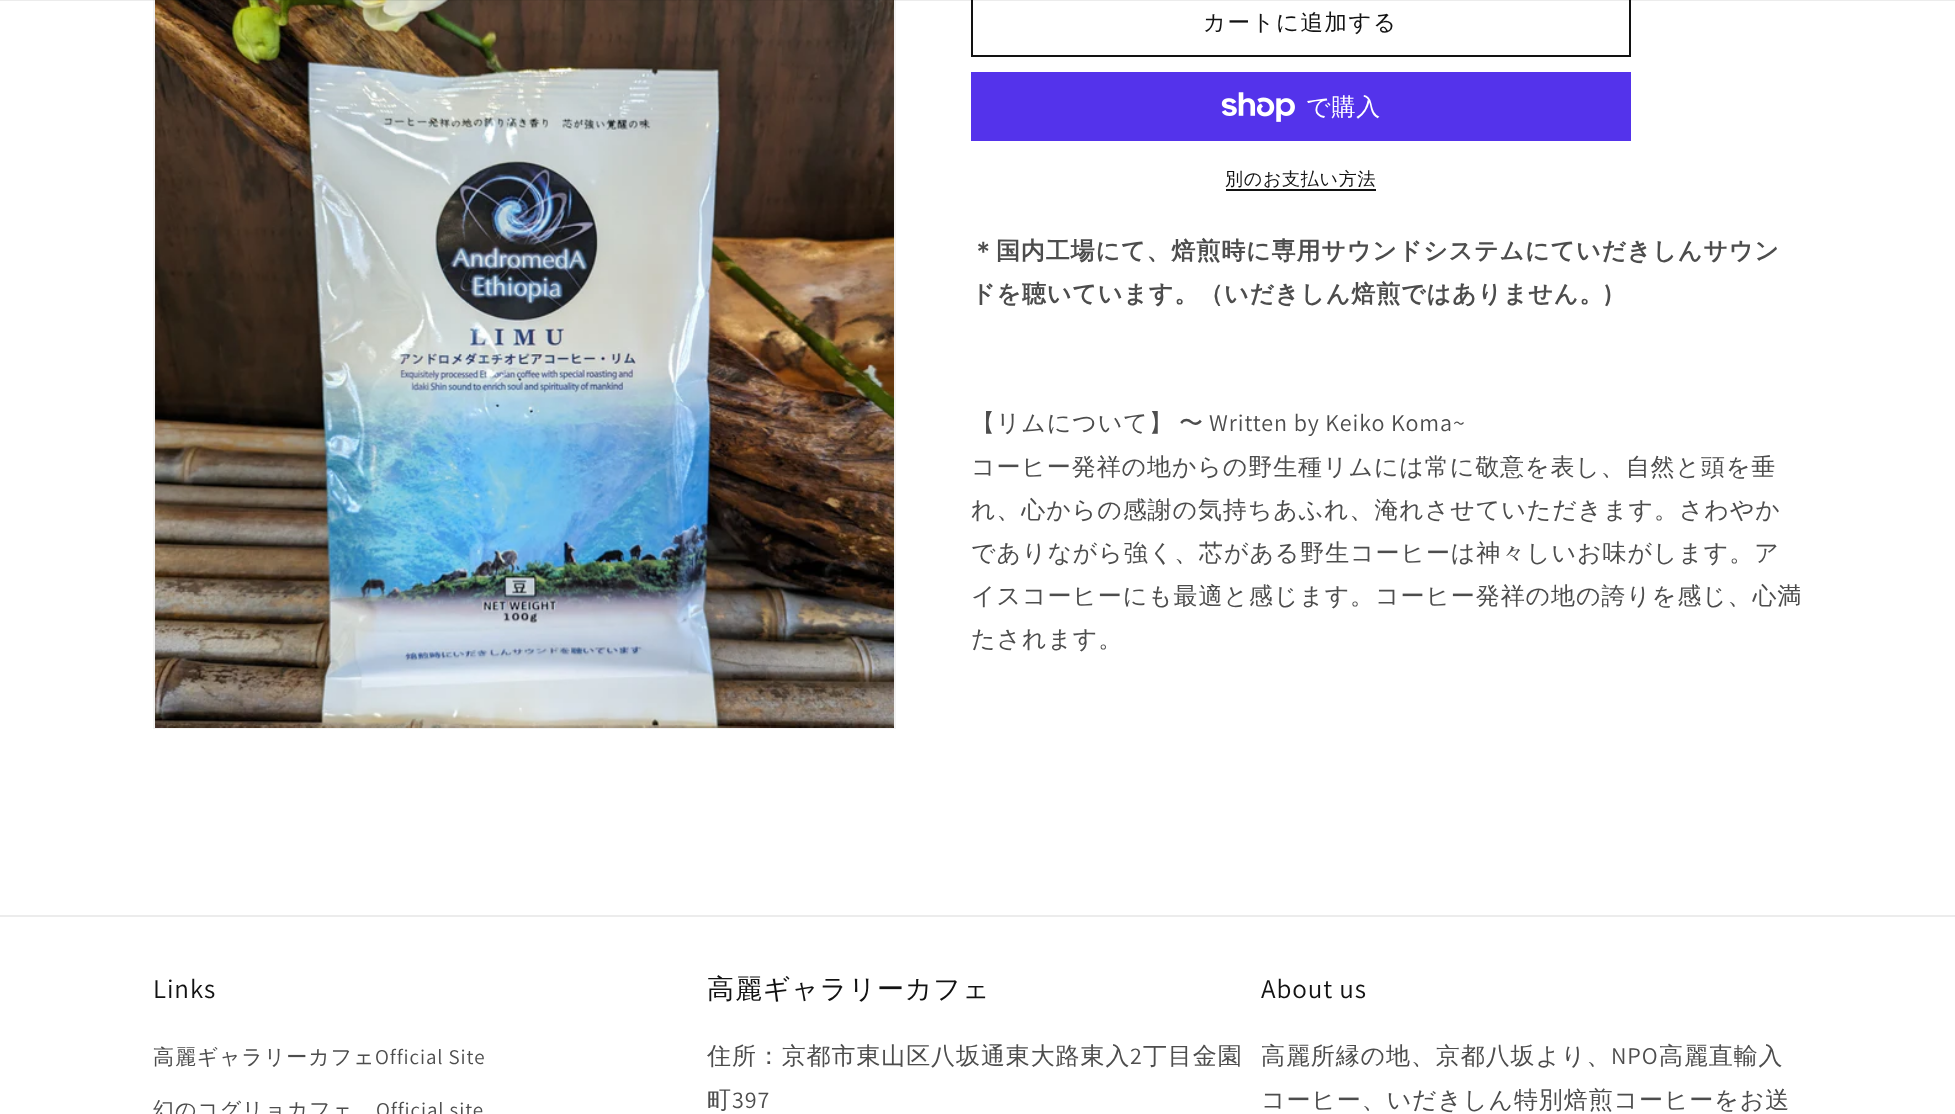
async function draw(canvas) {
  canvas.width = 1955;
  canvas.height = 1114;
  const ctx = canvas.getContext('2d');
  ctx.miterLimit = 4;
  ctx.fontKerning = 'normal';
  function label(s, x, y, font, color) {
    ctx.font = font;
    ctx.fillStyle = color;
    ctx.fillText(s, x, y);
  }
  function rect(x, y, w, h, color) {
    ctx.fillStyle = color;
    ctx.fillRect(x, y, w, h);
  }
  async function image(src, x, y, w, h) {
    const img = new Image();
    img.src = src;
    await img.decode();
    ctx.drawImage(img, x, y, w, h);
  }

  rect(0, 0, 1955, 1114, '#fff');
  ctx.strokeStyle = '#f3f3f3';
  ctx.lineWidth = 2;
  ctx.strokeRect(154, -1, 741, 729);
  await image('assets/img1.png', 155, 0, 739, 728);
  ctx.strokeStyle = '#121212';
  ctx.strokeRect(972, -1, 658, 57);
  rect(0, 0, 1955, 1, '#12121214');
  ctx.letterSpacing = '1.5px';
  label('カートに追加する', 1203, 30, '500 22.5px WenQuanYi Zen Hei', '#121212');
  rect(971, 72, 660, 69, '#5433eb');
  await image('assets/img2.png', 1221, 92, 74, 30);
  ctx.letterSpacing = '0.9px';
  label('で購入', 1306, 115, '500 24px WenQuanYi Zen Hei', '#fff');
  ctx.letterSpacing = '0.75px';
  label('別のお支払い方法', 1225, 185, '500 18px WenQuanYi Zen Hei', '#121212');
  rect(1226, 189, 150, 2, '#121212');
  ctx.letterSpacing = '0.9px';
  label('＊国内工場にて、焙煎時に専用サウンドシステムにていだきしんサウン', 971, 259, 'bold 24px WenQuanYi Zen Hei', '#4d4d4d');
  label('ドを聴いています。（いだきしん焙煎ではありません。', 971, 302, 'bold 24px WenQuanYi Zen Hei', '#4d4d4d');
  label(')', 1604, 302, 'bold 24px Assistant', '#4d4d4d');
  label('【リムについて】', 971, 431, '500 24px WenQuanYi Zen Hei', '#4d4d4d');
  label('〜', 1179, 431, '500 24px WenQuanYi Zen Hei', '#4d4d4d');
  label('Written by Keiko Koma~', 1209, 431, '24px Assistant', '#4d4d4d');
  label('コーヒー発祥の地からの野生種リムには常に敬意を表し、自然と頭を垂', 971, 475, '500 24px WenQuanYi Zen Hei', '#4d4d4d');
  label('れ、心からの感謝の気持ちあふれ、淹れさせていただきます。さわやか', 971, 518, '500 24px WenQuanYi Zen Hei', '#4d4d4d');
  label('でありながら強く、芯がある野生コーヒーは神々しいお味がします。ア', 971, 561, '500 24px WenQuanYi Zen Hei', '#4d4d4d');
  label('イスコーヒーにも最適と感じます。コーヒー発祥の地の誇りを感じ、心満', 971, 604, '500 24px WenQuanYi Zen Hei', '#4d4d4d');
  label('たされます。', 971, 647, '500 24px WenQuanYi Zen Hei', '#4d4d4d');
  rect(0, 915, 1955, 2, '#ececec');
  label('Links', 153, 998, '27px Assistant', '#121212');
  label('高麗ギャラリーカフェ', 153, 1064, '500 21px WenQuanYi Zen Hei', '#4d4d4d');
  label('Official Site', 375, 1064, '21px Assistant', '#4d4d4d');
  label('幻のコグリョカフェ', 153, 1117, '500 21px WenQuanYi Zen Hei', '#4d4d4d');
  label('Official site', 376, 1117, '21px Assistant', '#4d4d4d');
  label('高麗ギャラリーカフェ', 707, 998, '500 27px WenQuanYi Zen Hei', '#121212');
  label('住所：京都市東山区八坂通東大路東入', 707, 1064, '500 24px WenQuanYi Zen Hei', '#4d4d4d');
  label('2', 1130, 1064, '24px Assistant', '#4d4d4d');
  label('丁目金園', 1143, 1064, '500 24px WenQuanYi Zen Hei', '#4d4d4d');
  label('町', 707, 1108, '500 24px WenQuanYi Zen Hei', '#4d4d4d');
  label('397', 732, 1108, '24px Assistant', '#4d4d4d');
  label('About us', 1261, 998, '27px Assistant', '#121212');
  label('高麗所縁の地、京都八坂より、', 1261, 1064, '500 24px WenQuanYi Zen Hei', '#4d4d4d');
  label('NPO', 1611, 1064, '24px Assistant', '#4d4d4d');
  label('高麗直輸入', 1659, 1064, '500 24px WenQuanYi Zen Hei', '#4d4d4d');
  label('コーヒー、いだきしん特別焙煎コーヒーをお送', 1261, 1108, '500 24px WenQuanYi Zen Hei', '#4d4d4d');
}

draw(document.querySelector('canvas'));
